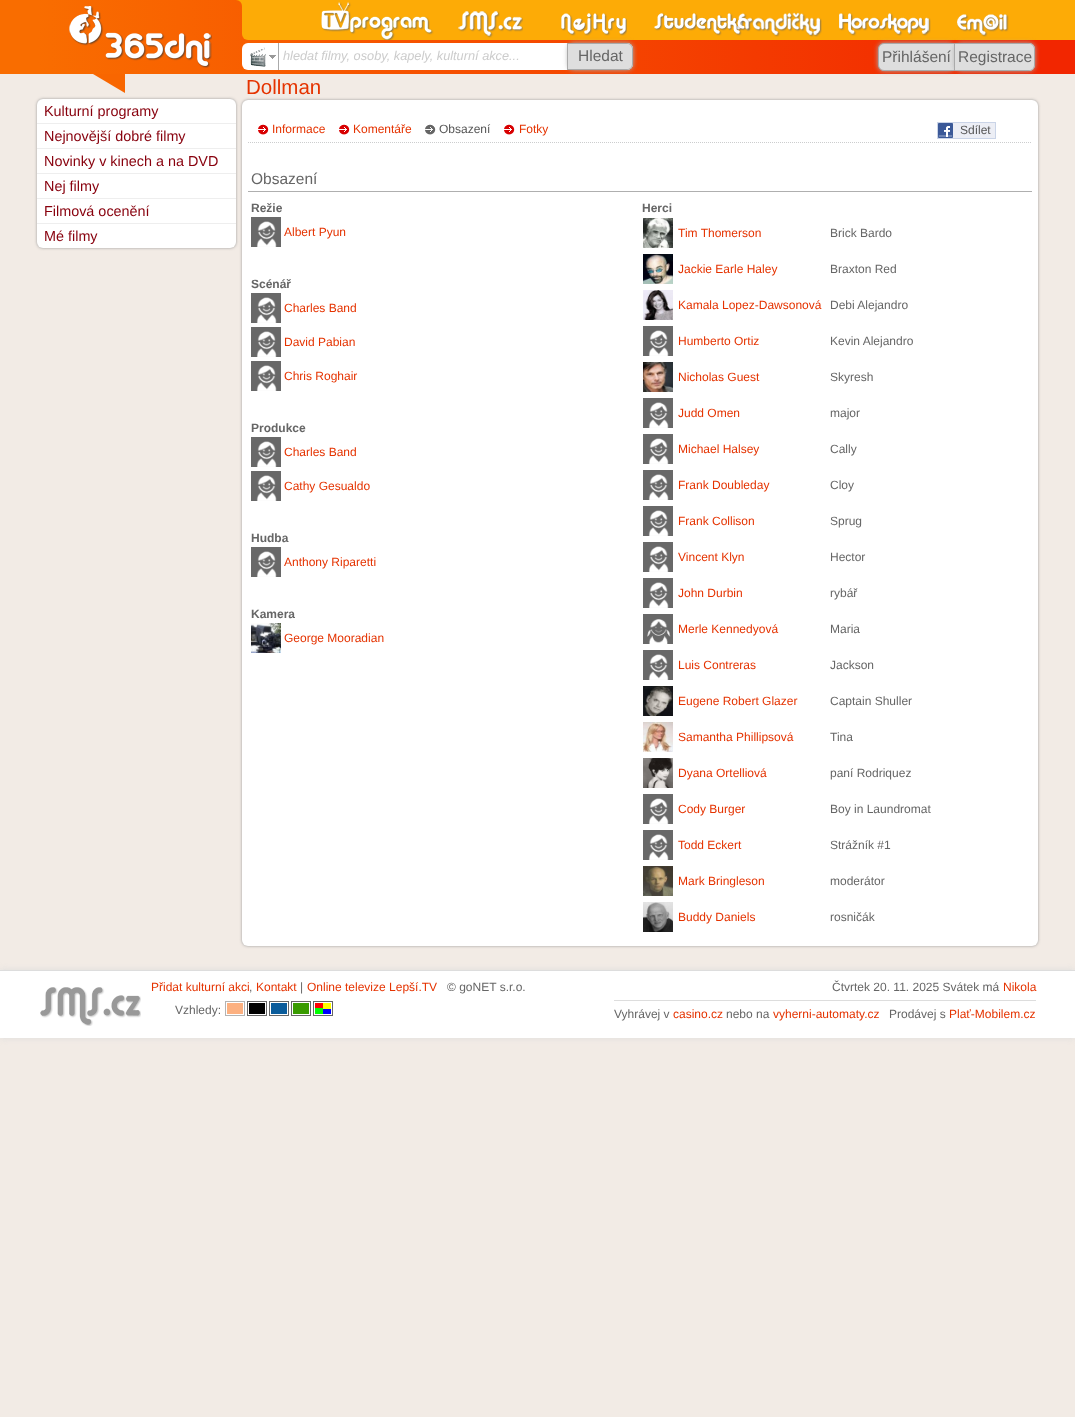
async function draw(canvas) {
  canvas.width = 1075;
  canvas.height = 1417;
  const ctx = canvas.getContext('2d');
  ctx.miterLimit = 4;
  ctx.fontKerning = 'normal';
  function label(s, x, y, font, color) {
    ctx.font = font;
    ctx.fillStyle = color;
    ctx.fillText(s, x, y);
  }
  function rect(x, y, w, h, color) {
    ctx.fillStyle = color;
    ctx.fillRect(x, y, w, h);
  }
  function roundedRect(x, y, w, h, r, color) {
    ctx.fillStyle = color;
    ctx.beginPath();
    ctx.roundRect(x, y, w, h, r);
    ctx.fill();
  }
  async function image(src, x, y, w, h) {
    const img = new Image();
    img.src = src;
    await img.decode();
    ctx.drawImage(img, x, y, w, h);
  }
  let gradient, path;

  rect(0, 0, 1075, 1417, '#f2ebe5');
  rect(0, 0, 37, 74, '#f96d00');
  rect(1038, 0, 37, 40, '#fdab06');
  rect(1038, 40, 37, 34, '#f22600');
  gradient = ctx.createLinearGradient(37, 37, 1038, 37);
  gradient.addColorStop(0, '#f96d00');
  gradient.addColorStop(1, '#f22600');
  ctx.fillStyle = gradient;
  ctx.fillRect(37, 0, 1001, 74);
  rect(235, 0, 7, 6, '#fdab06');
  ctx.fillStyle = '#f75f00';
  ctx.beginPath();
  ctx.roundRect(235, 0, 7, 6, [0, 6, 0, 0]);
  ctx.fill();
  await image('assets/img1.png', 69, 6, 143, 62);
  ctx.fillStyle = '#fdab06';
  ctx.beginPath();
  ctx.roundRect(242, 0, 796, 40, [0, 0, 0, 6]);
  ctx.fill();
  await image('assets/img2.png', 321, 2, 113, 38);
  await image('assets/img3.png', 458, 11, 65, 27);
  await image('assets/img4.png', 561, 13, 66, 23);
  await image('assets/img6.png', 736, 12, 86, 25);
  await image('assets/img5.png', 654, 13, 96, 23);
  await image('assets/img7.png', 839, 13, 92, 23);
  await image('assets/img8.png', 957, 14, 52, 23);
  roundedRect(242, 43, 391, 27, 6, '#fff');
  await image('assets/img9.png', 269, 55, 7, 4);
  await image('assets/img10.png', 250, 47, 16, 20);
  ctx.fillStyle = '#aaa';
  ctx.filter = 'blur(2.5px)';
  ctx.beginPath();
  ctx.roundRect(568, 43, 65, 27, 6);
  ctx.fill();
  ctx.filter = 'none';
  rect(567, 43, 1, 27, '#aaa');
  rect(278, 43, 1, 27, '#aaa');
  label('hledat filmy, osoby, kapely, kulturní akce...', 283, 60, 'italic 12.75px Liberation Sans', '#ccc');
  ctx.fillStyle = '#dedede';
  ctx.beginPath();
  ctx.roundRect(568, 43, 65, 27, [0, 6, 6, 0]);
  ctx.fill();
  ctx.fillStyle = '#aaa';
  path = new Path2D('M568 43H627C630 43 633 46 633 49V64C633 67 630 70 627 70H568ZM568 44H627C630 44 632 46 632 49V64C632 67 630 69 627 69H568Z');
  ctx.fill(path, 'evenodd');
  label('Hledat', 578, 61, '15.5px Liberation Sans', '#666');
  ctx.fillStyle = '#aaa';
  ctx.filter = 'blur(2.5px)';
  ctx.beginPath();
  ctx.roundRect(878, 43, 77, 28, 6);
  ctx.fill();
  ctx.filter = 'none';
  ctx.fillStyle = '#dedede';
  ctx.beginPath();
  ctx.roundRect(878.5, 43.5, 76, 27, [5.5, 0, 0, 5.5]);
  ctx.fill();
  ctx.strokeStyle = '#aaa';
  ctx.stroke();
  label('Přihlášení', 882, 62, '15.5px Liberation Sans', '#666');
  ctx.fillStyle = '#aaa';
  ctx.filter = 'blur(2.5px)';
  ctx.beginPath();
  ctx.roundRect(955, 43, 80, 28, 6);
  ctx.fill();
  ctx.filter = 'none';
  ctx.fillStyle = '#dedede';
  ctx.beginPath();
  ctx.roundRect(955, 43, 80, 28, [0, 6, 6, 0]);
  ctx.fill();
  ctx.fillStyle = '#aaa';
  path = new Path2D('M955 43H1029C1032 43 1035 46 1035 49V65C1035 68 1032 71 1029 71H955ZM955 44H1029C1032 44 1034 46 1034 49V65C1034 68 1032 70 1029 70H955Z');
  ctx.fill(path, 'evenodd');
  label('Registrace', 958, 62, '15.5px Liberation Sans', '#666');
  ctx.fillStyle = '#f86600';
  path = new Path2D('M93 74H125V93Z');
  ctx.fill(path);
  ctx.fillStyle = '#999';
  ctx.filter = 'blur(1.5px)';
  ctx.beginPath();
  ctx.roundRect(37, 99, 199, 149, 6);
  ctx.fill();
  ctx.filter = 'none';
  roundedRect(37, 99, 199, 149, 6, '#fff');
  rect(37, 123, 199, 1, '#eee');
  label('Kulturní programy', 44, 116, '14.4px Liberation Sans', '#88000d');
  rect(37, 148, 199, 1, '#eee');
  label('Nejnovější dobré filmy', 44, 141, '14.4px Liberation Sans', '#88000d');
  rect(37, 173, 199, 1, '#eee');
  label('Novinky v kinech a na DVD', 44, 166, '14.4px Liberation Sans', '#88000d');
  rect(37, 198, 199, 1, '#eee');
  label('Nej filmy', 44, 191, '14.4px Liberation Sans', '#88000d');
  rect(37, 223, 199, 1, '#eee');
  label('Filmová ocenění', 44, 216, '14.4px Liberation Sans', '#88000d');
  label('Mé filmy', 44, 241, '14.4px Liberation Sans', '#88000d');
  ctx.fillStyle = '#999';
  ctx.filter = 'blur(1.5px)';
  ctx.beginPath();
  ctx.roundRect(242, 100, 796, 846, 6);
  ctx.fill();
  ctx.filter = 'none';
  label('Dollman', 246, 94, '20.5px Liberation Sans', '#e53300');
  roundedRect(242, 100, 796, 846, 6, '#fff');
  await image('assets/img11.png', 258, 124, 11, 11);
  label('Informace', 272, 133, '12px Liberation Sans', '#e53300');
  await image('assets/img11.png', 339, 124, 11, 11);
  label('Komentáře', 353, 133, '12px Liberation Sans', '#e53300');
  await image('assets/img12.png', 425, 124, 11, 11);
  label('Obsazení', 439, 133, '12px Liberation Sans', '#555');
  await image('assets/img11.png', 504, 124, 11, 11);
  label('Fotky', 519, 133, '12px Liberation Sans', '#e53300');
  rect(953, 123, 42, 15, '#eceef5');
  ctx.strokeStyle = '#cad4e7';
  ctx.strokeRect(937.5, 122.5, 58, 16);
  await image('assets/img13.png', 938, 123, 15, 15);
  label('Sdílet', 960, 134, '12px Liberation Sans', '#555');
  path = new Path2D('M248 142.5H1032');
  ctx.strokeStyle = '#cccdce';
  ctx.setLineDash([1, 1]);
  ctx.stroke(path);
  rect(248, 191, 784, 1, '#afafaf');
  label('Obsazení', 251, 184, '15.5px Liberation Sans', '#666');
  label('Režie', 251, 212, 'bold 12px Liberation Sans', '#666');
  await image('assets/img14.png', 251, 217, 30, 30);
  label('Albert Pyun', 284, 236, '12px Liberation Sans', '#e53300');
  label('Scénář', 251, 288, 'bold 12px Liberation Sans', '#666');
  await image('assets/img14.png', 251, 293, 30, 30);
  label('Charles Band', 284, 312, '12px Liberation Sans', '#e53300');
  await image('assets/img14.png', 251, 327, 30, 30);
  label('David Pabian', 284, 346, '12px Liberation Sans', '#e53300');
  await image('assets/img14.png', 251, 361, 30, 30);
  label('Chris Roghair', 284, 380, '12px Liberation Sans', '#e53300');
  label('Produkce', 251, 432, 'bold 12px Liberation Sans', '#666');
  await image('assets/img14.png', 251, 437, 30, 30);
  label('Charles Band', 284, 456, '12px Liberation Sans', '#e53300');
  await image('assets/img14.png', 251, 471, 30, 30);
  label('Cathy Gesualdo', 284, 490, '12px Liberation Sans', '#e53300');
  label('Hudba', 251, 542, 'bold 12px Liberation Sans', '#666');
  await image('assets/img14.png', 251, 547, 30, 30);
  label('Anthony Riparetti', 284, 566, '12px Liberation Sans', '#e53300');
  label('Kamera', 251, 618, 'bold 12px Liberation Sans', '#666');
  await image('assets/img15.png', 251, 623, 30, 30);
  label('George Mooradian', 284, 642, '12px Liberation Sans', '#e53300');
  label('Herci', 642, 212, 'bold 12px Liberation Sans', '#666');
  await image('assets/img16.png', 643, 218, 30, 30);
  label('Tim Thomerson', 678, 237, '12px Liberation Sans', '#e53300');
  label('Brick Bardo', 830, 237, '12px Liberation Sans', '#666');
  await image('assets/img17.png', 643, 254, 30, 30);
  label('Jackie Earle Haley', 678, 273, '12px Liberation Sans', '#e53300');
  label('Braxton Red', 830, 273, '12px Liberation Sans', '#666');
  await image('assets/img18.png', 643, 290, 30, 30);
  label('Kamala Lopez-Dawsonová', 678, 309, '12px Liberation Sans', '#e53300');
  label('Debi Alejandro', 830, 309, '12px Liberation Sans', '#666');
  await image('assets/img14.png', 643, 326, 30, 30);
  label('Humberto Ortiz', 678, 345, '12px Liberation Sans', '#e53300');
  label('Kevin Alejandro', 830, 345, '12px Liberation Sans', '#666');
  await image('assets/img19.png', 643, 362, 30, 30);
  label('Nicholas Guest', 678, 381, '12px Liberation Sans', '#e53300');
  label('Skyresh', 830, 381, '12px Liberation Sans', '#666');
  await image('assets/img14.png', 643, 398, 30, 30);
  label('Judd Omen', 678, 417, '12px Liberation Sans', '#e53300');
  label('major', 830, 417, '12px Liberation Sans', '#666');
  await image('assets/img14.png', 643, 434, 30, 30);
  label('Michael Halsey', 678, 453, '12px Liberation Sans', '#e53300');
  label('Cally', 830, 453, '12px Liberation Sans', '#666');
  await image('assets/img14.png', 643, 470, 30, 30);
  label('Frank Doubleday', 678, 489, '12px Liberation Sans', '#e53300');
  label('Cloy', 830, 489, '12px Liberation Sans', '#666');
  await image('assets/img14.png', 643, 506, 30, 30);
  label('Frank Collison', 678, 525, '12px Liberation Sans', '#e53300');
  label('Sprug', 830, 525, '12px Liberation Sans', '#666');
  await image('assets/img14.png', 643, 542, 30, 30);
  label('Vincent Klyn', 678, 561, '12px Liberation Sans', '#e53300');
  label('Hector', 830, 561, '12px Liberation Sans', '#666');
  await image('assets/img14.png', 643, 578, 30, 30);
  label('John Durbin', 678, 597, '12px Liberation Sans', '#e53300');
  label('rybář', 830, 597, '12px Liberation Sans', '#666');
  await image('assets/img20.png', 643, 614, 30, 30);
  label('Merle Kennedyová', 678, 633, '12px Liberation Sans', '#e53300');
  label('Maria', 830, 633, '12px Liberation Sans', '#666');
  await image('assets/img14.png', 643, 650, 30, 30);
  label('Luis Contreras', 678, 669, '12px Liberation Sans', '#e53300');
  label('Jackson', 830, 669, '12px Liberation Sans', '#666');
  await image('assets/img21.png', 643, 686, 30, 30);
  label('Eugene Robert Glazer', 678, 705, '12px Liberation Sans', '#e53300');
  label('Captain Shuller', 830, 705, '12px Liberation Sans', '#666');
  await image('assets/img22.png', 643, 722, 30, 30);
  label('Samantha Phillipsová', 678, 741, '12px Liberation Sans', '#e53300');
  label('Tina', 830, 741, '12px Liberation Sans', '#666');
  await image('assets/img23.png', 643, 758, 30, 30);
  label('Dyana Ortelliová', 678, 777, '12px Liberation Sans', '#e53300');
  label('paní Rodriquez', 830, 777, '12px Liberation Sans', '#666');
  await image('assets/img14.png', 643, 794, 30, 30);
  label('Cody Burger', 678, 813, '12px Liberation Sans', '#e53300');
  label('Boy in Laundromat', 830, 813, '12px Liberation Sans', '#666');
  await image('assets/img14.png', 643, 830, 30, 30);
  label('Todd Eckert', 678, 849, '12px Liberation Sans', '#e53300');
  label('Strážník #1', 830, 849, '12px Liberation Sans', '#666');
  await image('assets/img24.png', 643, 866, 30, 30);
  label('Mark Bringleson', 678, 885, '12px Liberation Sans', '#e53300');
  label('moderátor', 830, 885, '12px Liberation Sans', '#666');
  await image('assets/img25.png', 643, 902, 30, 30);
  label('Buddy Daniels', 678, 921, '12px Liberation Sans', '#e53300');
  label('rosničák', 830, 921, '12px Liberation Sans', '#666');
  ctx.fillStyle = '#ddd';
  ctx.filter = 'blur(3px)';
  ctx.beginPath();
  ctx.rect(0, 970, 1075, 68);
  ctx.fill();
  ctx.filter = 'none';
  rect(0, 971, 1075, 67, '#fff');
  rect(0, 970, 1075, 1, '#ddd');
  await image('assets/img26.png', 40, 987, 101, 39);
  label('Přidat kulturní akci', 151, 991, '12px Liberation Sans', '#e53300');
  label(',', 249, 991, '12px Liberation Sans', '#666');
  label('Kontakt', 256, 991, '12px Liberation Sans', '#e53300');
  label('|', 300, 991, '12px Liberation Sans', '#666');
  label('Online televize Lepší.TV', 307, 991, '12px Liberation Sans', '#e53300');
  label('© goNET s.r.o.', 447, 991, '12px Liberation Sans', '#666');
  ctx.strokeStyle = '#b3b3b3';
  ctx.setLineDash([]);
  ctx.strokeRect(225.5, 1001.5, 19, 14);
  rect(227, 1003, 16, 11, '#fcb080');
  ctx.strokeStyle = '#666';
  ctx.strokeRect(247.5, 1001.5, 19, 14);
  rect(249, 1003, 16, 11, '#000');
  ctx.strokeRect(269.5, 1001.5, 19, 14);
  rect(271, 1003, 16, 11, '#0a5c9b');
  ctx.strokeRect(291.5, 1001.5, 19, 14);
  rect(293, 1003, 16, 11, '#399b00');
  ctx.strokeRect(313.5, 1001.5, 19, 14);
  label('Vzhledy:', 175, 1014, '12px Liberation Sans', '#666');
  await image('assets/img27.png', 315, 1003, 16, 11);
  rect(614, 1000, 422, 1, '#ddd');
  label('Čtvrtek 20. 11. 2025 Svátek má', 832, 991, '12px Liberation Sans', '#666');
  label('Nikola', 1003, 991, '12px Liberation Sans', '#e53300');
  label('Vyhrávej v', 614, 1018, '12px Liberation Sans', '#666');
  label('casino.cz', 673, 1018, '12px Liberation Sans', '#e53300');
  label('nebo na', 726, 1018, '12px Liberation Sans', '#666');
  label('vyherni-automaty.cz', 773, 1018, '12px Liberation Sans', '#e53300');
  label('Prodávej s', 889, 1018, '12px Liberation Sans', '#666');
  label('Plať-Mobilem.cz', 949, 1018, '12px Liberation Sans', '#e53300');
}

draw(document.querySelector('canvas'));
